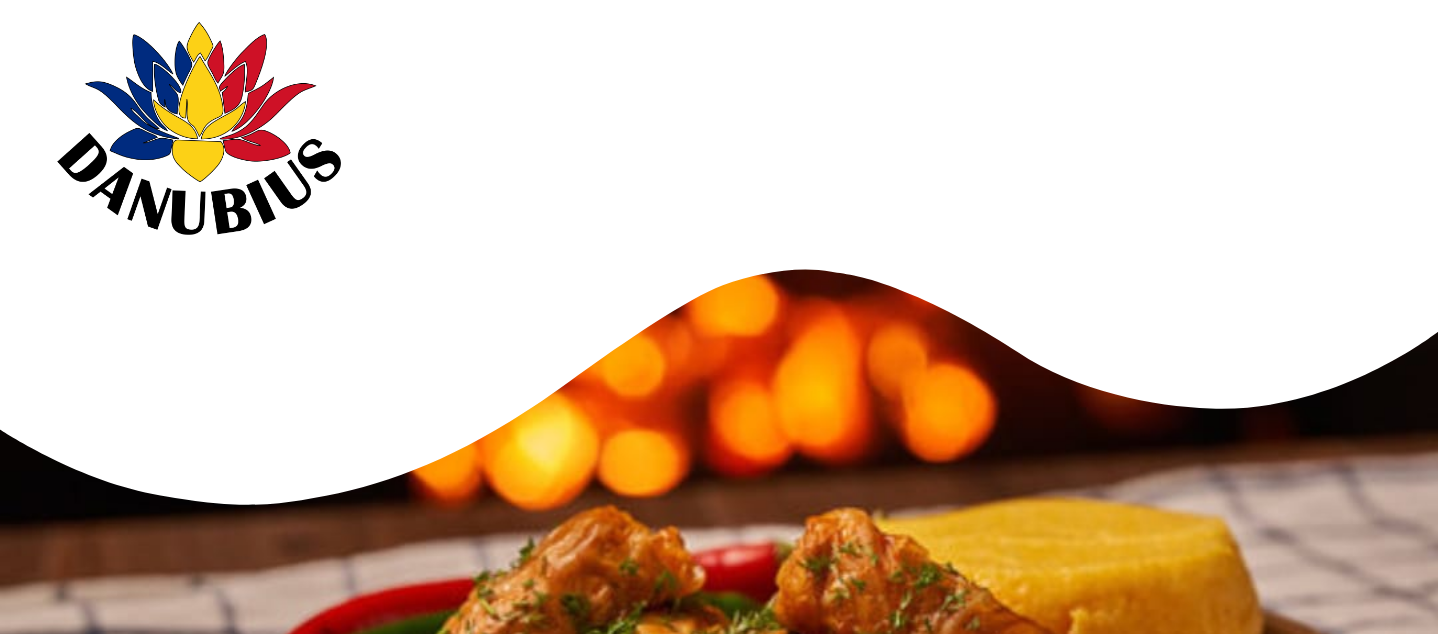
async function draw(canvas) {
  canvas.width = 1438;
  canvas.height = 634;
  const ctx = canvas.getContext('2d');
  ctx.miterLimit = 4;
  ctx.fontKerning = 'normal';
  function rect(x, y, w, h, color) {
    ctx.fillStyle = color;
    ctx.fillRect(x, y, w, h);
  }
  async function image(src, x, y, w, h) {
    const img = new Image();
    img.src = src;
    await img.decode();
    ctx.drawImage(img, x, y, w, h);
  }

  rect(0, 0, 1438, 634, '#fff');
  await image('assets/img1.png', 57, 22, 284, 213);
  await image('assets/img2.png', 0, 269, 1438, 365);
}

draw(document.querySelector('canvas'));
